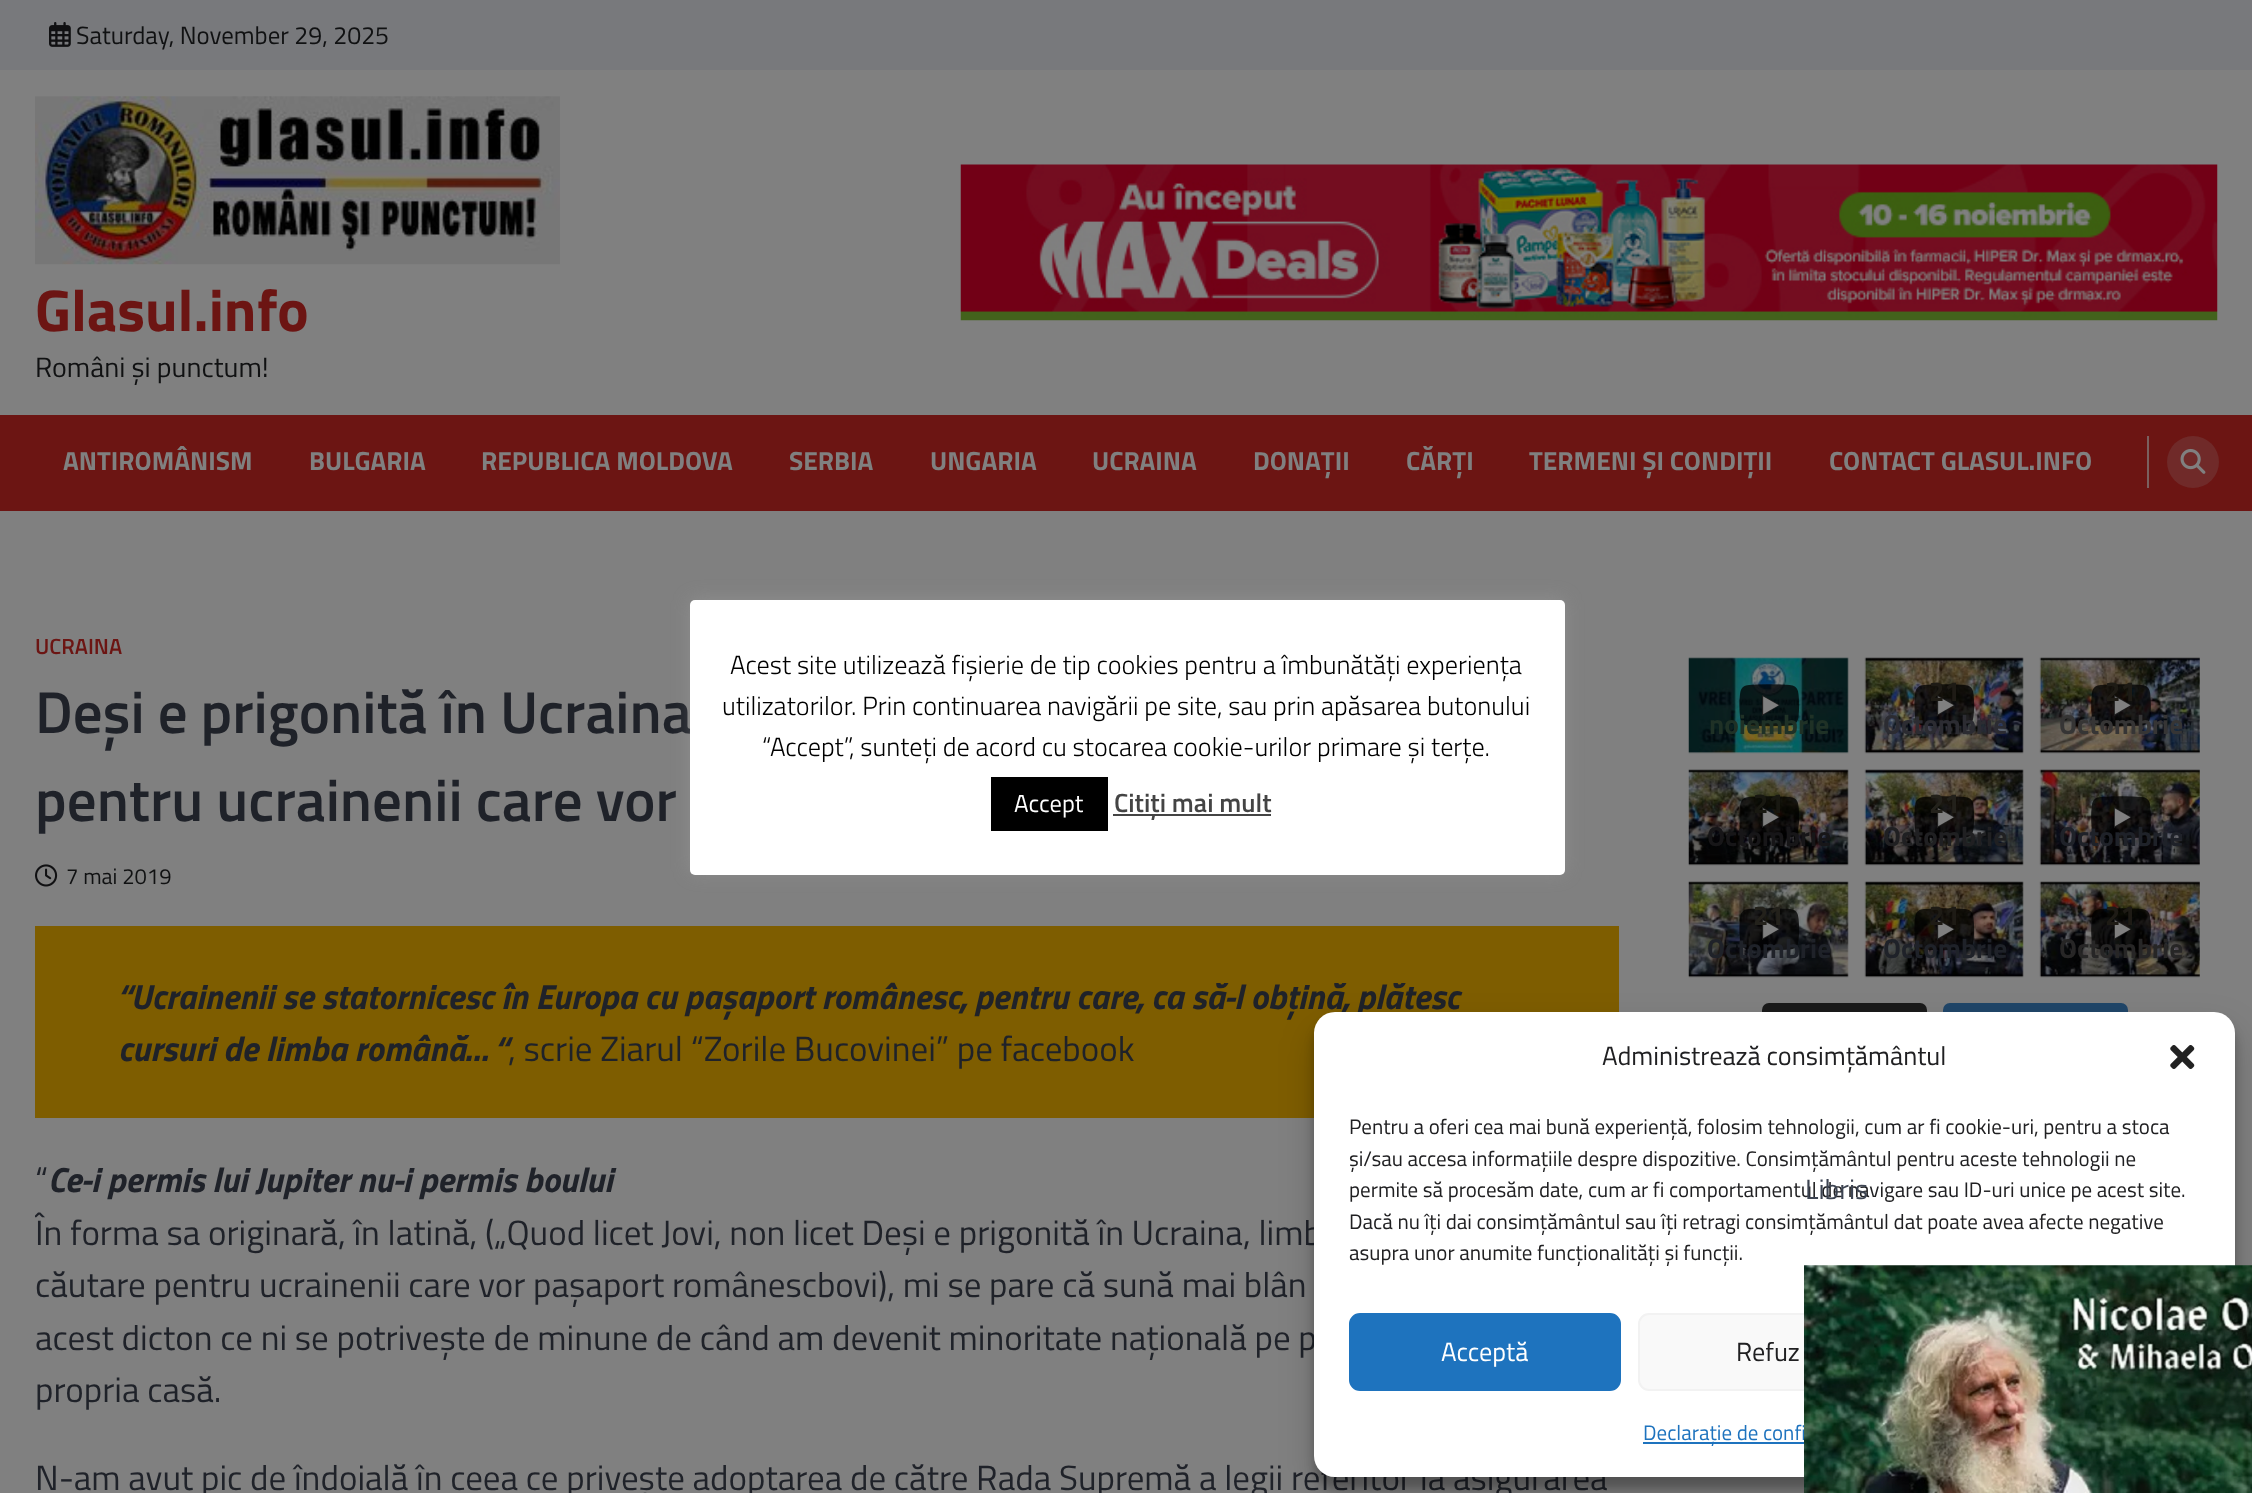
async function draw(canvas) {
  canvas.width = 2252;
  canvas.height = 1493;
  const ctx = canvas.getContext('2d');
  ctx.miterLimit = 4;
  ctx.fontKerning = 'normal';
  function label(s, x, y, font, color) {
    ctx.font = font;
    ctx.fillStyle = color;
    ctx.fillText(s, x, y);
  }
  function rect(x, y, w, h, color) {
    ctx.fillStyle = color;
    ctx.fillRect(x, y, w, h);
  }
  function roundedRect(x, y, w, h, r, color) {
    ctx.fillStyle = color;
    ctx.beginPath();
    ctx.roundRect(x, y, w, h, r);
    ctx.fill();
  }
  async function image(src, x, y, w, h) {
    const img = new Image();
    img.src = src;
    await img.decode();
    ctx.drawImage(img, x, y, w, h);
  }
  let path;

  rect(0, 0, 2252, 1493, '#808080');
  rect(0, 0, 2252, 70, '#78797c');
  await image('assets/img1.png', 49, 22, 22, 25);
  label('Saturday, November 29, 2025', 76, 44, '24.9px Titillium Web', '#101112');
  await image('assets/img2.png', 960, 164, 1258, 157);
  await image('assets/img3.png', 35, 96, 525, 169);
  label('Glasul.info', 35, 331, 'bold 59px Titillium Web', '#6c1513');
  label('Români și punctum!', 35, 377, '28px Titillium Web', '#101112');
  rect(0, 415, 2252, 96, '#6c1513');
  label('ANTIROMÂNISM', 63, 470, 'bold 26.25px Titillium Web', '#808080');
  label('BULGARIA', 309, 470, 'bold 26.25px Titillium Web', '#808080');
  label('REPUBLICA MOLDOVA', 481, 470, 'bold 26.25px Titillium Web', '#808080');
  label('SERBIA', 789, 470, 'bold 26.25px Titillium Web', '#808080');
  label('UNGARIA', 930, 470, 'bold 26.25px Titillium Web', '#808080');
  label('UCRAINA', 1092, 470, 'bold 26.25px Titillium Web', '#808080');
  label('DONAȚII', 1253, 470, 'bold 26.25px Titillium Web', '#808080');
  label('CĂRȚI', 1406, 470, 'bold 26.25px Titillium Web', '#808080');
  label('TERMENI ȘI CONDIȚII', 1529, 470, 'bold 26.25px Titillium Web', '#808080');
  label('CONTACT GLASUL.INFO', 1829, 470, 'bold 26.25px Titillium Web', '#808080');
  rect(2147, 436, 2, 52, '#7a605f');
  ctx.fillStyle = '#702a29';
  ctx.beginPath();
  ctx.arc(2193, 462, 26, 0, 2 * Math.PI);
  ctx.fill();
  await image('assets/img4.png', 2180, 448, 26, 26);
  label('UCRAINA', 35, 654, '600 22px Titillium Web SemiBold', '#6c1513');
  label('Deși e prigonită în Ucraina', 35, 733, '600 59px Titillium Web SemiBold', '#1f2229');
  label('pentru ucrainenii care vor', 35, 821, '600 59px Titillium Web SemiBold', '#1f2229');
  await image('assets/img5.png', 35, 864, 23, 23);
  label('7 mai 2019', 66, 884, '22px Titillium Web', '#101112');
  rect(35, 926, 1584, 192, '#7e5d00');
  label('“Ucrainenii se statornicesc în Europa cu paşaport românesc, pentru care, ca să-l obţină, plătesc', 118, 1009, 'italic bold 35px Titillium Web', '#1f2229');
  label('cursuri de limba română… “', 118, 1061, 'italic bold 35px Titillium Web', '#1f2229');
  label(', scrie Ziarul “Zorile Bucovinei” pe facebook', 508, 1061, '35px Titillium Web', '#1f2229');
  label('“', 35, 1192, '35px Titillium Web', '#1f2229');
  label('Ce-i permis lui Jupiter nu-i permis boului', 48, 1192, 'italic bold 35px Titillium Web', '#1f2229');
  ctx.save();
  ctx.beginPath();
  ctx.rect(35, 599, 1584, 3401);
  ctx.clip();
  label('În forma sa originară, în latină, („Quod licet Jovi, non licet Deși e prigonită în Ucraina, limb', 35, 1245, '35px Titillium Web', '#1f2229');
  ctx.restore();
  label('căutare pentru ucrainenii care vor pașaport românescbovi), mi se pare că sună mai blân', 35, 1297, '35px Titillium Web', '#1f2229');
  label('acest dicton ce ni se potriveşte de minune de când am devenit minoritate naţională pe p', 35, 1350, '35px Titillium Web', '#1f2229');
  label('propria casă.', 35, 1402, '35px Titillium Web', '#1f2229');
  label('N-am avut pic de îndoială în ceea ce priveşte adoptarea de către Rada Supremă a legii referitor la asigurarea', 35, 1490, '35px Titillium Web', '#1f2229');
  await image('assets/img6.png', 1688, 657, 161, 97);
  ctx.fillStyle = '#808080';
  path = new Path2D('M1762 716V695L1780 705Z');
  ctx.fill(path);
  await image('assets/img7.png', 1739, 684, 61, 43);
  label('noiembrie', 1709, 734, 'bold 27.5px Titillium Web', '#1f3126');
  await image('assets/img8.png', 1864, 657, 160, 97);
  ctx.fillStyle = '#808080';
  path = new Path2D('M1937 716V695L1955 705Z');
  ctx.fill(path);
  await image('assets/img9.png', 1914, 684, 61, 43);
  label('21', 1929, 701, 'bold 27.5px Titillium Web', '#1e1b15');
  label('Octombrie', 1883, 734, 'bold 27.5px Titillium Web', '#2c2c32');
  await image('assets/img10.png', 2039, 657, 161, 97);
  ctx.fillStyle = '#808080';
  path = new Path2D('M2114 716V695L2131.5 705Z');
  ctx.fill(path);
  await image('assets/img11.png', 2091, 684, 60, 43);
  label('21', 2105, 701, 'bold 27.5px Titillium Web', '#1e1b15');
  label('Octombrie', 2059, 734, 'bold 27.5px Titillium Web', '#363535');
  await image('assets/img12.png', 1688, 769, 161, 97);
  ctx.fillStyle = '#808080';
  path = new Path2D('M1762 828V807L1780 817Z');
  ctx.fill(path);
  await image('assets/img13.png', 1739, 796, 60, 43);
  label('21', 1753, 813, 'bold 27.5px Titillium Web', '#181811');
  label('Octombrie', 1707, 846, 'bold 27.5px Titillium Web', '#171618');
  await image('assets/img14.png', 1864, 769, 160, 97);
  ctx.fillStyle = '#808080';
  path = new Path2D('M1937 828V807L1955 817Z');
  ctx.fill(path);
  await image('assets/img15.png', 1914, 796, 61, 43);
  label('21', 1929, 813, 'bold 27.5px Titillium Web', '#23211b');
  label('Octombrie', 1883, 846, 'bold 27.5px Titillium Web', '#202022');
  await image('assets/img16.png', 2039, 769, 161, 97);
  ctx.fillStyle = '#808080';
  path = new Path2D('M2114 828V807L2131.5 817Z');
  ctx.fill(path);
  await image('assets/img17.png', 2091, 796, 60, 43);
  label('Octombrie', 2059, 846, 'bold 27.5px Titillium Web', '#1f2229');
  await image('assets/img18.png', 1688, 881, 161, 97);
  ctx.fillStyle = '#808080';
  path = new Path2D('M1762 940V919L1780 929Z');
  ctx.fill(path);
  await image('assets/img19.png', 1739, 908, 61, 43);
  label('21', 1753, 925, 'bold 27.5px Titillium Web', '#23211b');
  label('Octombrie', 1707, 958, 'bold 27.5px Titillium Web', '#1f2229');
  await image('assets/img20.png', 1864, 881, 160, 97);
  ctx.fillStyle = '#808080';
  path = new Path2D('M1937 940V919L1955 929Z');
  ctx.fill(path);
  await image('assets/img21.png', 1914, 908, 61, 43);
  label('21', 1929, 925, 'bold 27.5px Titillium Web', '#1e1b15');
  label('Octombrie', 1883, 958, 'bold 27.5px Titillium Web', '#1f2229');
  await image('assets/img22.png', 2039, 881, 161, 97);
  ctx.fillStyle = '#808080';
  path = new Path2D('M2114 940V919L2131.5 929Z');
  ctx.fill(path);
  await image('assets/img23.png', 2091, 908, 60, 43);
  label('21', 2105, 925, 'bold 27.5px Titillium Web', '#1e1b15');
  label('Octombrie', 2059, 958, 'bold 27.5px Titillium Web', '#272626');
  roundedRect(1762, 1003, 165, 58, 7, '#1a1a1a');
  roundedRect(1943, 1003, 185, 58, 7, '#204669');
  ctx.fillStyle = '#acabab4d';
  ctx.filter = 'blur(9px)';
  ctx.beginPath();
  ctx.roundRect(690, 599, 875, 274, 5);
  ctx.fill();
  ctx.filter = 'none';
  roundedRect(690, 600, 875, 275, 5, '#fff');
  label('Acest site utilizează fișierie de tip cookies pentru a îmbunătăți experiența', 730, 674, '300 26.25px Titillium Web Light', '#000');
  label('utilizatorilor. Prin continuarea navigării pe site, sau prin apăsarea butonului', 722, 715, '300 26.25px Titillium Web Light', '#000');
  label('“Accept”, sunteți de acord cu stocarea cookie-urilor primare și terțe.', 762, 756, '300 26.25px Titillium Web Light', '#000');
  rect(991, 777, 117, 54, '#000');
  label('Accept', 1014, 812, '24.5px Titillium Web', '#fff');
  rect(1113, 814, 158, 2, '#444');
  label('Citiți mai mult', 1114, 812, '600 26.25px Titillium Web SemiBold', '#444');
  ctx.fillStyle = '#0000003b';
  ctx.filter = 'blur(5px)';
  ctx.beginPath();
  ctx.roundRect(1314, 1022, 921, 466, 21);
  ctx.fill();
  ctx.filter = 'none';
  ctx.fillStyle = '#00000030';
  ctx.filter = 'blur(17.5px)';
  ctx.beginPath();
  ctx.roundRect(1314, 1029, 921, 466, 21);
  ctx.fill();
  ctx.filter = 'none';
  roundedRect(1314, 1012, 921, 465, 21, '#fff');
  label('Administrează consimțământul', 1602, 1065, '26.25px Titillium Web', '#202022');
  await image('assets/img24.png', 2170, 1045, 25, 24);
  label('Pentru a oferi cea mai bună experiență, folosim tehnologii, cum ar fi cookie-uri, pentru a stoca', 1349, 1134, '21px Titillium Web', '#202022');
  label('și/sau accesa informațiile despre dispozitive. Consimțământul pentru aceste tehnologii ne', 1349, 1166, '21px Titillium Web', '#202022');
  label('permite să procesăm date, cum ar fi comportamentul de navigare sau ID-uri unice pe acest site.', 1349, 1197, '21px Titillium Web', '#202022');
  label('Dacă nu îți dai consimțământul sau îți retragi consimțământul dat poate avea afecte negative', 1349, 1229, '21px Titillium Web', '#202022');
  label('asupra unor anumite funcționalități și funcții.', 1349, 1260, '21px Titillium Web', '#202022');
  ctx.fillStyle = '#1e73be';
  ctx.beginPath();
  ctx.roundRect(1350, 1314, 270, 76, 10);
  ctx.fill();
  ctx.strokeStyle = '#1e73be';
  ctx.lineWidth = 2;
  ctx.stroke();
  label('Acceptă', 1441, 1361, '26.25px Titillium Web', '#fff');
  ctx.fillStyle = '#f9f9f9';
  ctx.beginPath();
  ctx.roundRect(1639, 1314, 271, 76, 10);
  ctx.fill();
  ctx.strokeStyle = '#f2f2f2';
  ctx.stroke();
  label('Refuz', 1736, 1361, '26.25px Titillium Web', '#202022');
  rect(1643, 1442, 161, 2, '#1e73be');
  label('Declarație de confi', 1643, 1440, '21px Titillium Web', '#1e73be');
  label('Libris', 1805, 1199, '28px Titillium Web', '#3d4452');
  await image('assets/img25.png', 1804, 1265, 448, 228);
}

draw(document.querySelector('canvas'));
